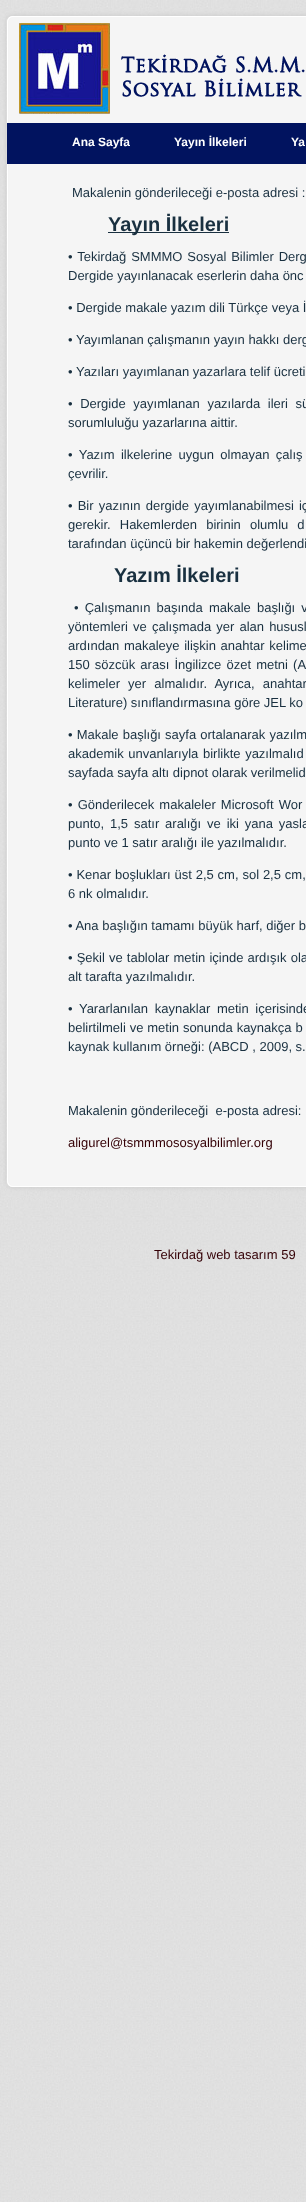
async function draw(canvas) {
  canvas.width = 306;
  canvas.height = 2202;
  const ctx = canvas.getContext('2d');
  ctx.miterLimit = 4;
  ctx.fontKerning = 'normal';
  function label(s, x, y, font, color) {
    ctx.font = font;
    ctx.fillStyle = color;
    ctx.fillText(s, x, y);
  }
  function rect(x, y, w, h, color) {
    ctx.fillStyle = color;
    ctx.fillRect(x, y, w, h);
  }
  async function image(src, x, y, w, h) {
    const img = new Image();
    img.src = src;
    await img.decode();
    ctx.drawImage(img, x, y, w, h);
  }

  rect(0, 0, 306, 2202, '#fff');
  await image('assets/img1.png', 0, 0, 306, 2202);
  await image('assets/img2.png', 0, 11, 306, 159);
  label('Ana Sayfa', 72, 146, 'bold 12px Liberation Sans', '#fff');
  label('Yayın İlkeleri', 174, 146, 'bold 12px Liberation Sans', '#fff');
  label('Ya', 291, 146, 'bold 12px Liberation Sans', '#fff');
  await image('assets/img3.png', 0, 170, 306, 995);
  label('Makalenin gönderileceği e-posta adresi :', 72, 197, '13px Liberation Sans', '#193040');
  rect(108, 232, 121, 1, '#193040');
  label('Yayın İlkeleri', 108, 231, 'bold 20px Liberation Sans', '#193040');
  ctx.wordSpacing = '1.25px';
  label('• Tekirdağ SMMMO Sosyal Bilimler Derg', 68, 261, '13px Liberation Sans', '#193040');
  ctx.wordSpacing = '0px';
  label('Dergide yayınlanacak eserlerin daha önc', 68, 280, '13px Liberation Sans', '#193040');
  label('• Dergide makale yazım dili Türkçe veya İ', 68, 312, '13px Liberation Sans', '#193040');
  label('• Yayımlanan çalışmanın yayın hakkı derg', 68, 344, '13px Liberation Sans', '#193040');
  label('• Yazıları yayımlanan yazarlara telif ücreti', 68, 376, '13px Liberation Sans', '#193040');
  ctx.wordSpacing = '4px';
  label('• Dergide yayımlanan yazılarda ileri sü', 68, 408, '13px Liberation Sans', '#193040');
  ctx.wordSpacing = '0px';
  label('sorumluluğu yazarlarına aittir.', 68, 427, '13px Liberation Sans', '#193040');
  ctx.wordSpacing = '2.75px';
  label('• Yazım ilkelerine uygun olmayan çalış', 68, 459, '13px Liberation Sans', '#193040');
  ctx.wordSpacing = '0px';
  label('çevrilir.', 68, 478, '13px Liberation Sans', '#193040');
  ctx.wordSpacing = '1.5px';
  label('• Bir yazının dergide yayımlanabilmesi iç', 68, 510, '13px Liberation Sans', '#193040');
  ctx.wordSpacing = '5.5px';
  label('gerekir. Hakemlerden birinin olumlu d', 68, 529, '13px Liberation Sans', '#193040');
  ctx.wordSpacing = '0px';
  label('tarafından üçüncü bir hakemin değerlendi', 68, 548, '13px Liberation Sans', '#193040');
  label('Yazım İlkeleri', 114, 582, 'bold 20px Liberation Sans', '#193040');
  ctx.wordSpacing = '2.5px';
  label('• Çalışmanın başında makale başlığı v', 74, 612, '13px Liberation Sans', '#193040');
  ctx.wordSpacing = '1.5px';
  label('yöntemleri ve çalışmada yer alan hususl', 68, 631, '13px Liberation Sans', '#193040');
  ctx.wordSpacing = '1px';
  label('ardından makaleye ilişkin anahtar kelime', 68, 650, '13px Liberation Sans', '#193040');
  ctx.wordSpacing = '1.5px';
  label('150 sözcük arası İngilizce özet metni (A', 68, 669, '13px Liberation Sans', '#193040');
  ctx.wordSpacing = '4.5px';
  label('kelimeler yer almalıdır. Ayrıca, anahtar', 68, 688, '13px Liberation Sans', '#193040');
  ctx.wordSpacing = '0px';
  label('Literature) sınıflandırmasına göre JEL ko', 68, 707, '13px Liberation Sans', '#193040');
  ctx.wordSpacing = '0.5px';
  label('• Makale başlığı sayfa ortalanarak yazılm', 68, 739, '13px Liberation Sans', '#193040');
  ctx.wordSpacing = '1px';
  label('akademik unvanlarıyla birlikte yazılmalıd', 68, 758, '13px Liberation Sans', '#193040');
  ctx.wordSpacing = '0px';
  label('sayfada sayfa altı dipnot olarak verilmelid', 68, 777, '13px Liberation Sans', '#193040');
  ctx.wordSpacing = '1.5px';
  label('• Gönderilecek makaleler Microsoft Wor', 68, 809, '13px Liberation Sans', '#193040');
  ctx.wordSpacing = '2.25px';
  label('punto, 1,5 satır aralığı ve iki yana yasla', 68, 828, '13px Liberation Sans', '#193040');
  ctx.wordSpacing = '0px';
  label('punto ve 1 satır aralığı ile yazılmalıdır.', 68, 847, '13px Liberation Sans', '#193040');
  ctx.wordSpacing = '0.25px';
  label('• Kenar boşlukları üst 2,5 cm, sol 2,5 cm,', 68, 879, '13px Liberation Sans', '#193040');
  ctx.wordSpacing = '0px';
  label('6 nk olmalıdır.', 68, 898, '13px Liberation Sans', '#193040');
  label('• Ana başlığın tamamı büyük harf, diğer b', 68, 930, '13px Liberation Sans', '#193040');
  ctx.wordSpacing = '0.5px';
  label('• Şekil ve tablolar metin içinde ardışık ola', 68, 962, '13px Liberation Sans', '#193040');
  ctx.wordSpacing = '0px';
  label('alt tarafta yazılmalıdır.', 68, 981, '13px Liberation Sans', '#193040');
  ctx.wordSpacing = '3px';
  label('• Yararlanılan kaynaklar metin içerisinde', 68, 1013, '13px Liberation Sans', '#193040');
  ctx.wordSpacing = '0.25px';
  label('belirtilmeli ve metin sonunda kaynakça b', 68, 1032, '13px Liberation Sans', '#193040');
  ctx.wordSpacing = '0px';
  label('kaynak kullanım örneği: (ABCD , 2009, s.', 68, 1051, '13px Liberation Sans', '#193040');
  label('Makalenin gönderileceği  e-posta adresi:', 68, 1115, '13px Liberation Sans', '#193040');
  label('aligurel@tsmmmososyalbilimler.org', 68, 1147, '13px Liberation Sans', '#340006');
  await image('assets/img4.png', 3, 1165, 303, 31);
  label('Tekirdağ web tasarım 59', 154, 1259, '13px Liberation Sans', '#340006');
}

draw(document.querySelector('canvas'));
